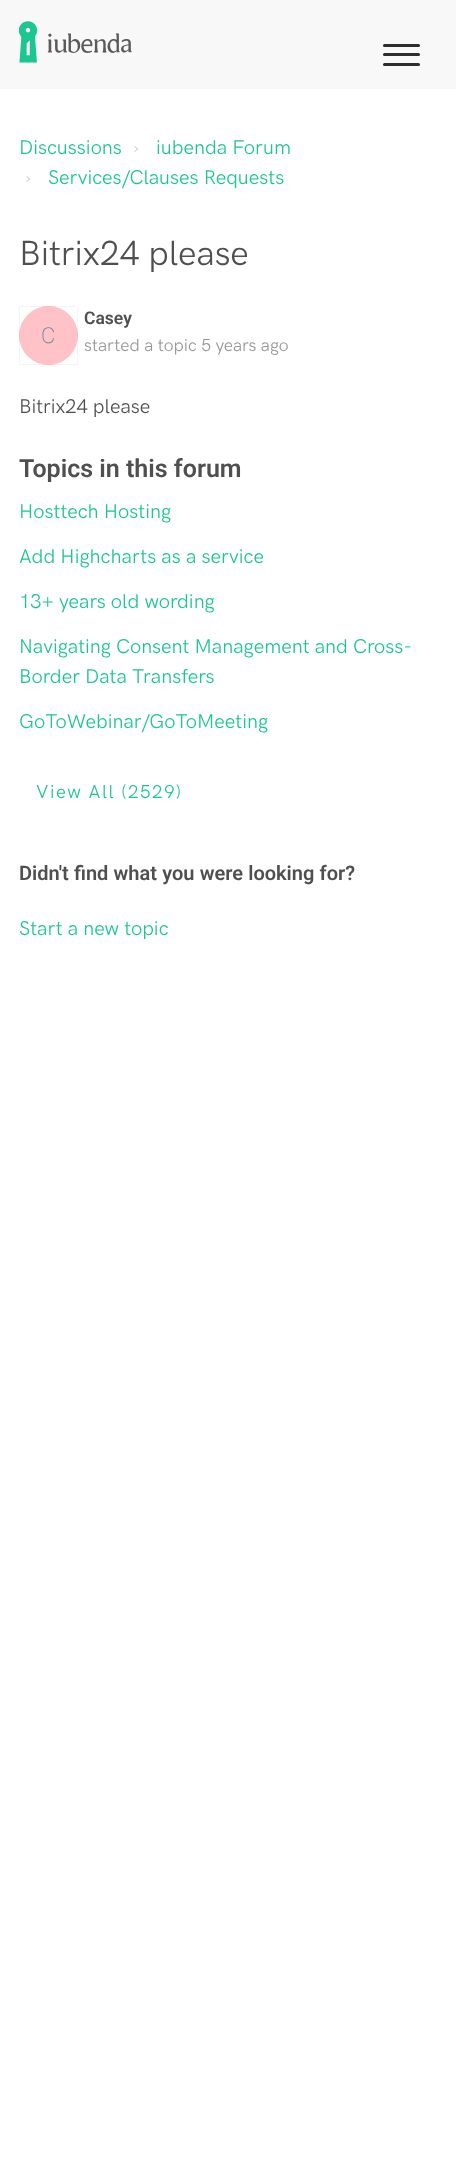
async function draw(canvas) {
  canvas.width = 456;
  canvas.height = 2173;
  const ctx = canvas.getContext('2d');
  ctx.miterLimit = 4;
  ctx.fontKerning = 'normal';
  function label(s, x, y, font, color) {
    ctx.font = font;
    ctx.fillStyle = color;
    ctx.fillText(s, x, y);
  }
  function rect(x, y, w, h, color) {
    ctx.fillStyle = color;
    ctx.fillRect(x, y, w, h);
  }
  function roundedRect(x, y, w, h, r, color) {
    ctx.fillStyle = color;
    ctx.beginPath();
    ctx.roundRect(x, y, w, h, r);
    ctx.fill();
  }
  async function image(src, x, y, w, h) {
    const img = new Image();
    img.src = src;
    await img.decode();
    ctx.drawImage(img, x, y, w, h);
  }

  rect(0, 0, 456, 2173, '#fff');
  rect(0, 0, 456, 89, '#f8f8f8');
  await image('assets/img1.png', 19, 21, 113, 42);
  roundedRect(383, 53, 37, 3, 1.5, '#2d2d2d');
  roundedRect(383, 44, 37, 3, 1.5, '#2d2d2d');
  roundedRect(383, 63, 37, 3, 1.5, '#2d2d2d');
  label('Discussions', 19, 154, '20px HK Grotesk', '#1cc691');
  label('›', 133, 154, '20px HK Grotesk', '#ccc');
  label('iubenda Forum', 156, 154, '20px HK Grotesk', '#1cc691');
  label('›', 25, 184, '20px HK Grotesk', '#ccc');
  label('Services/Clauses Requests', 48, 184, '20px HK Grotesk', '#1cc691');
  label('Bitrix24 please', 19, 265, '35px HK Grotesk', '#504f4f');
  ctx.fillStyle = '#ffc2c6';
  ctx.beginPath();
  ctx.arc(48.5, 335.5, 29.5, 0, 2 * Math.PI);
  ctx.fill();
  ctx.strokeStyle = '#0000000a';
  ctx.strokeRect(19.5, 306.5, 58, 58);
  label('C', 41, 343, '200 22px Roboto', '#638699');
  label('Casey', 84, 324, '600 17.5px Roboto', '#504f4f');
  label('started a topic 5 years ago', 84, 351, '17.5px HK Grotesk', '#979797');
  label('Bitrix24 please', 19, 413, '20px HK Grotesk', '#504f4f');
  label('Topics in this forum', 19, 477, '600 25px Roboto', '#504f4f');
  label('Hosttech Hosting', 19, 518, '20px HK Grotesk', '#1cc691');
  label('Add Highcharts as a service', 19, 563, '20px HK Grotesk', '#1cc691');
  label('13+ years old wording', 19, 608, '20px HK Grotesk', '#1cc691');
  label('Navigating Consent Management and Cross-', 19, 653, '20px HK Grotesk', '#1cc691');
  label('Border Data Transfers', 19, 683, '20px HK Grotesk', '#1cc691');
  label('GoToWebinar/GoToMeeting', 19, 728, '20px HK Grotesk', '#1cc691');
  ctx.letterSpacing = '1.5px';
  label('View All (2529)', 36, 798, '18.75px HK Grotesk', '#1cc691');
  ctx.letterSpacing = '0px';
  ctx.wordSpacing = '0.25px';
  label('Didn\'t find what you were looking for?', 19, 880, '600 20px Roboto', '#504f4f');
  ctx.wordSpacing = '0px';
  label('Start a new topic', 19, 935, '20px HK Grotesk', '#1cc691');
}

draw(document.querySelector('canvas'));
